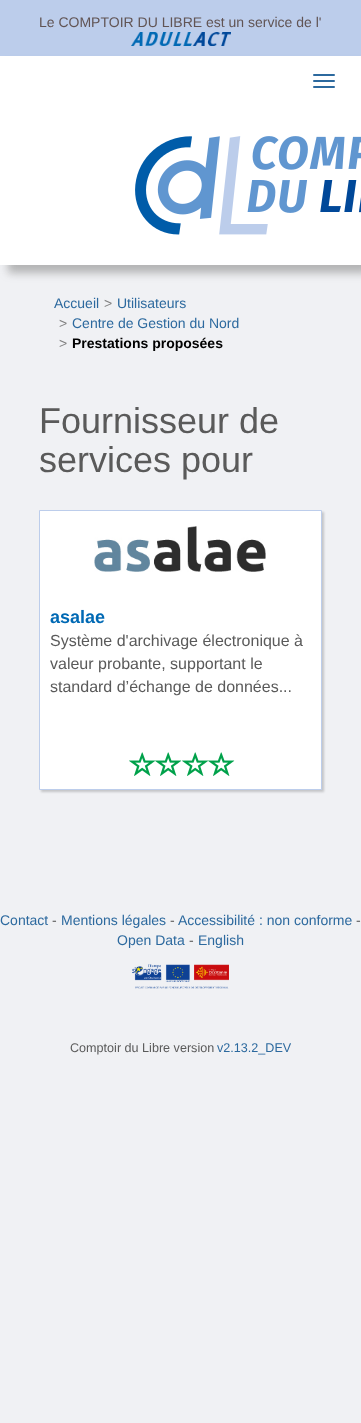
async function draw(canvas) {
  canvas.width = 361;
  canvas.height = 1423;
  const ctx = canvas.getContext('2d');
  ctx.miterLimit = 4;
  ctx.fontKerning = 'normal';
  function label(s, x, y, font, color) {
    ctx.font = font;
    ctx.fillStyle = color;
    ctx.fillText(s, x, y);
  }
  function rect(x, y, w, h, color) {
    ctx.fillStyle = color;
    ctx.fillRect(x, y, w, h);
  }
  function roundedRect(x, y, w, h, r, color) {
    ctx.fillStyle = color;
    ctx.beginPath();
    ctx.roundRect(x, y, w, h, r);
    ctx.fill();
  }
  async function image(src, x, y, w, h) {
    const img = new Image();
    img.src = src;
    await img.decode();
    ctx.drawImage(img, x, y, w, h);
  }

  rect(0, 0, 361, 1423, '#f0f1f4');
  rect(0, 0, 361, 56, '#bccdeb');
  label('Le COMPTOIR DU LIBRE est un service de l\'', 39, 27, '14px Liberation Sans', '#615454');
  await image('assets/img1.png', 131, 32, 100, 14);
  ctx.fillStyle = '#57575666';
  ctx.filter = 'blur(4px)';
  ctx.beginPath();
  ctx.rect(8, 64, 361, 209);
  ctx.fill();
  ctx.filter = 'none';
  rect(0, 56, 361, 209, '#fff');
  roundedRect(313, 74, 22, 2, 1, '#2c699e');
  roundedRect(313, 80, 22, 2, 1, '#2c699e');
  roundedRect(313, 86, 22, 2, 1, '#2c699e');
  await image('assets/img2.png', 135, 136, 226, 99);
  label('Accueil', 54, 308, '14px Liberation Sans', '#2c699e');
  label('>', 104, 308, '14px Liberation Sans', '#808080');
  label('Utilisateurs', 117, 308, '14px Liberation Sans', '#2c699e');
  label('>', 59, 328, '14px Liberation Sans', '#808080');
  label('Centre de Gestion du Nord', 72, 328, '14px Liberation Sans', '#2c699e');
  label('>', 59, 348, '14px Liberation Sans', '#808080');
  label('Prestations proposées', 72, 348, 'bold 14px Liberation Sans', '#000');
  label('Fournisseur de', 39, 433, '36px Liberation Sans', '#5a5a5a');
  label('services pour', 39, 472, '36px Liberation Sans', '#5a5a5a');
  ctx.fillStyle = '#0000002e';
  ctx.filter = 'blur(1px)';
  ctx.beginPath();
  ctx.rect(41, 512, 283, 280);
  ctx.fill();
  ctx.filter = 'none';
  ctx.fillStyle = '#fff';
  ctx.beginPath();
  ctx.rect(39.5, 510.5, 282, 279);
  ctx.fill();
  ctx.strokeStyle = '#bccdeb';
  ctx.stroke();
  await image('assets/img3.png', 94, 526, 172, 46);
  label('asalae', 50, 623, 'bold 18px Liberation Sans', '#0069b4');
  label('Système d\'archivage électronique à', 50, 646, '16px Liberation Sans', '#5a5a5a');
  label('valeur probante, supportant le', 50, 669, '16px Liberation Sans', '#5a5a5a');
  label('standard d’échange de données...', 50, 692, '16px Liberation Sans', '#5a5a5a');
  await image('assets/img4.png', 129, 752, 27, 24);
  await image('assets/img5.png', 155, 752, 27, 24);
  await image('assets/img4.png', 182, 752, 27, 24);
  await image('assets/img5.png', 208, 752, 27, 24);
  label('Contact', 0, 925, '14px Liberation Sans', '#2c699e');
  label('-', 52, 925, '14px Liberation Sans', '#5a5a5a');
  label('Mentions légales', 61, 925, '14px Liberation Sans', '#2c699e');
  label('-', 170, 925, '14px Liberation Sans', '#5a5a5a');
  label('Accessibilité : non conforme', 178, 925, '14px Liberation Sans', '#2c699e');
  label('-', 356, 925, '14px Liberation Sans', '#5a5a5a');
  label('Open Data', 117, 945, '14px Liberation Sans', '#2c699e');
  label('-', 189, 945, '14px Liberation Sans', '#5a5a5a');
  label('English', 198, 945, '14px Liberation Sans', '#2c699e');
  await image('assets/img6.png', 132, 964, 97, 25);
  label('Comptoir du Libre version', 70, 1052, '12.6px Liberation Sans', '#5a5a5a');
  label('v2.13.2_DEV', 217, 1052, '12.6px Liberation Sans', '#2c699e');
}

draw(document.querySelector('canvas'));
